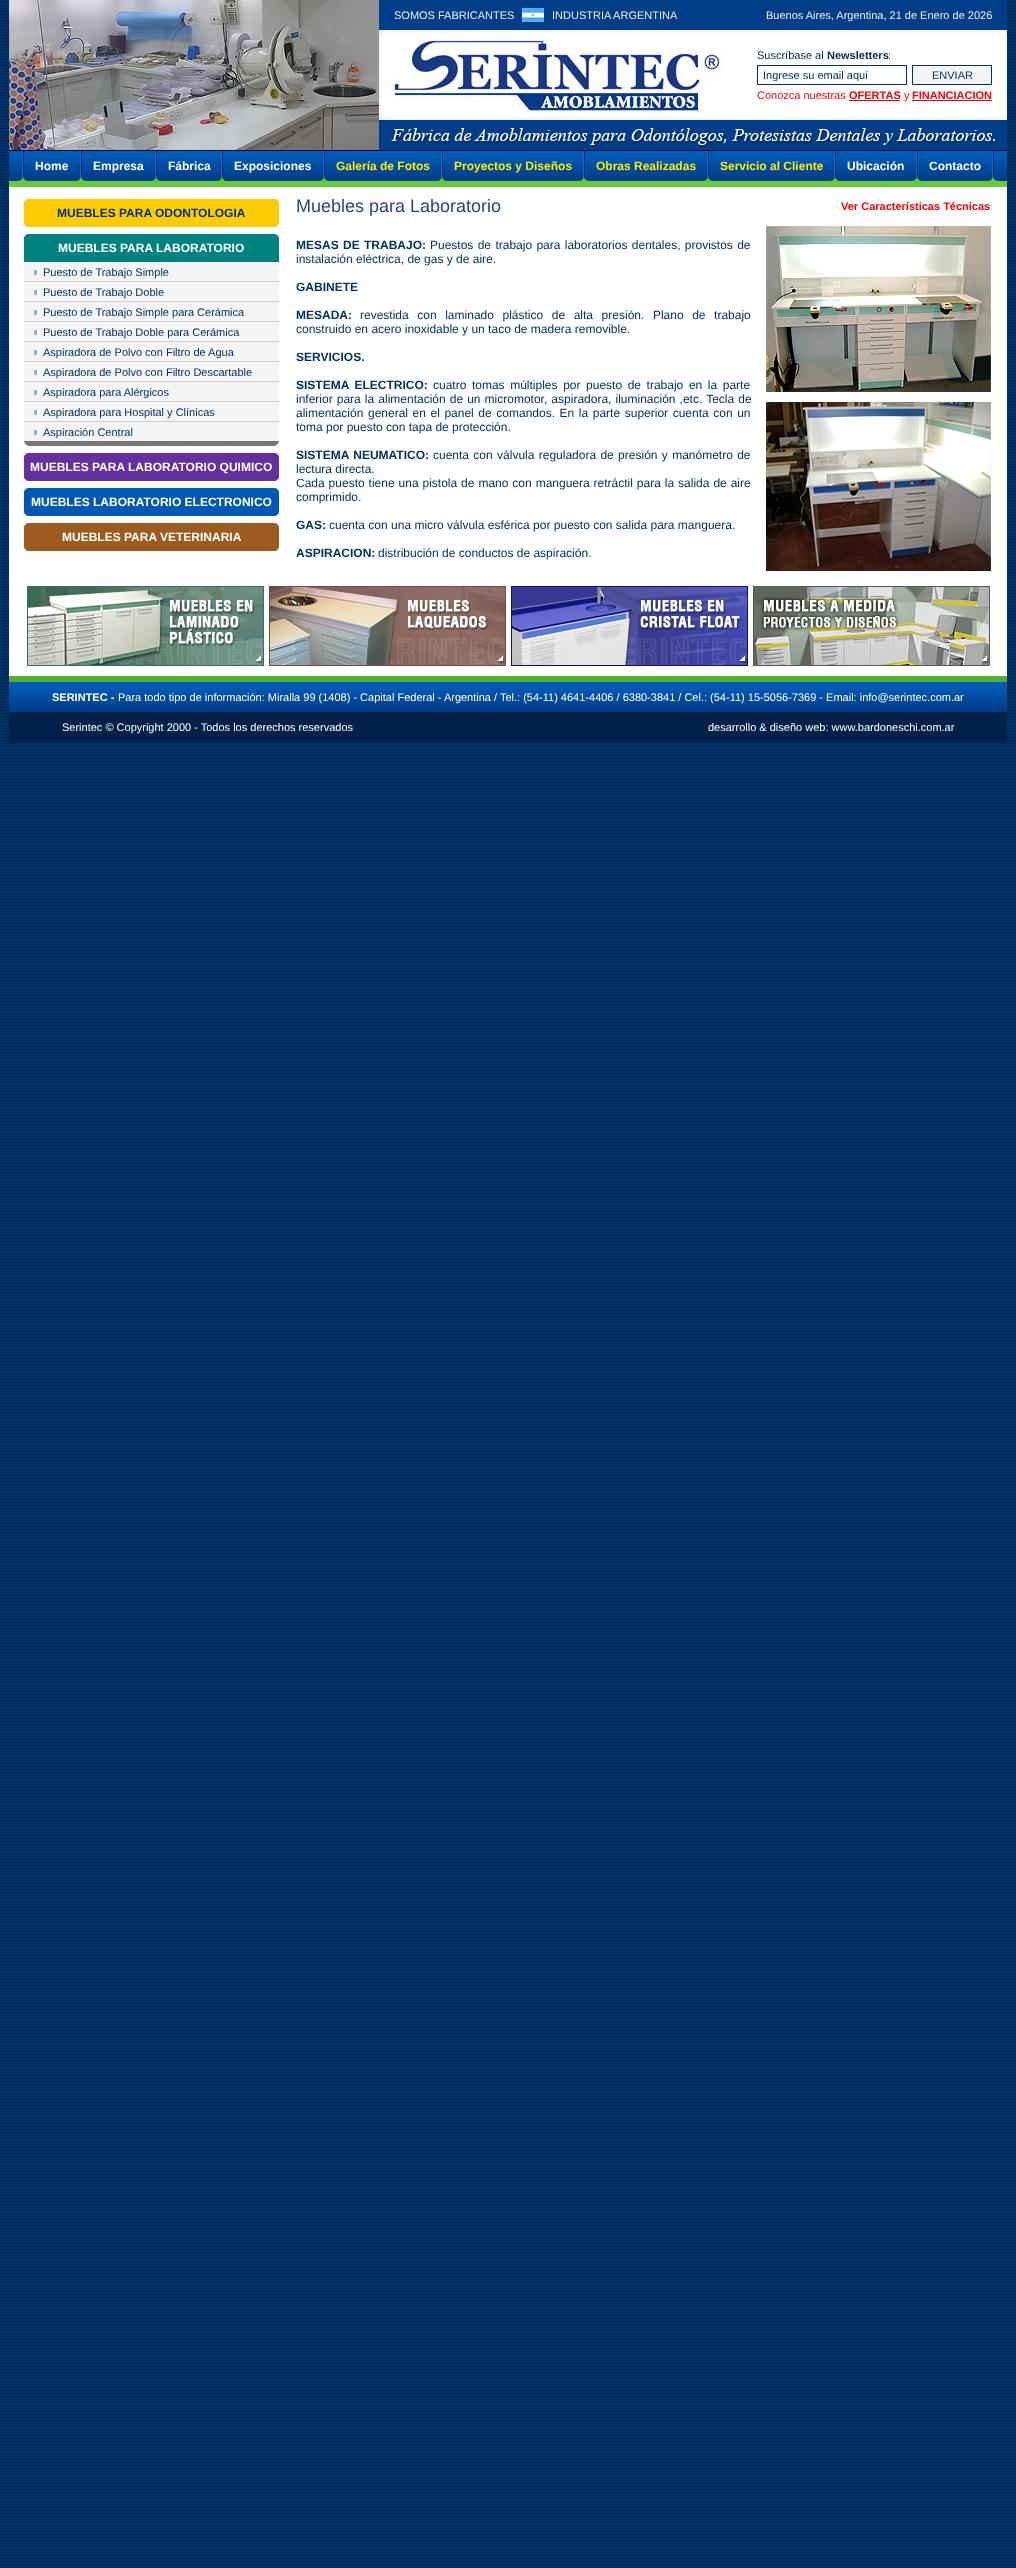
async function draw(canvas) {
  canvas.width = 1016;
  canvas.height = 2568;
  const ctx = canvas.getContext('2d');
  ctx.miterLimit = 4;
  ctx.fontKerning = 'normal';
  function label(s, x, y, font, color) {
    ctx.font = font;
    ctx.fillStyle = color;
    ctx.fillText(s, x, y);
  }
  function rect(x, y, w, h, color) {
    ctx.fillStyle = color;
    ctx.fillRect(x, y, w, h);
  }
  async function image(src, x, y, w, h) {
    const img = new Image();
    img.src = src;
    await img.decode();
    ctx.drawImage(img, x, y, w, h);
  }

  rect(0, 0, 1016, 2568, '#00336c');
  await image('assets/img1.png', 0, 2, 1016, 2566);
  await image('assets/img2.png', 9, 0, 370, 150);
  rect(379, 0, 628, 30, '#003e89');
  label('SOMOS FABRICANTES', 394, 19, '11px Liberation Sans', '#eee');
  await image('assets/img3.png', 522, 8, 22, 14);
  label('INDUSTRIA ARGENTINA', 552, 19, '11px Liberation Sans', '#eee');
  label('Buenos Aires, Argentina, 21 de Enero de 2026', 766, 19, '11px Liberation Sans', '#eee');
  await image('assets/img4.png', 379, 30, 628, 90);
  label('Suscríbase al', 757, 59, '11px Liberation Sans', '#036');
  label('Newsletters', 827, 59, 'bold 11px Liberation Sans', '#036');
  label(':', 888, 59, '11px Liberation Sans', '#036');
  ctx.strokeStyle = '#036';
  ctx.strokeRect(757.5, 65.5, 149, 19);
  ctx.save();
  ctx.beginPath();
  ctx.rect(760, 69, 144, 12);
  ctx.clip();
  label('Ingrese su email aquí', 763, 79, '11px Liberation Sans', '#036');
  ctx.restore();
  ctx.fillStyle = '#f4f4f4';
  ctx.beginPath();
  ctx.rect(912.5, 65.5, 79, 19);
  ctx.fill();
  ctx.stroke();
  label('ENVIAR', 932, 79, '11px Liberation Sans', '#036');
  label('Conozca nuestras', 757, 99, '11px Liberation Sans', '#f00');
  label('OFERTAS', 849, 99, 'bold 11px Liberation Sans', '#f00');
  rect(849, 100, 51, 1, '#f00');
  label('y', 904, 99, '11px Liberation Sans', '#f00');
  label('FINANCIACION', 912, 99, 'bold 11px Liberation Sans', '#f00');
  rect(912, 100, 80, 1, '#f00');
  rect(379, 120, 628, 30, '#003e89');
  await image('assets/img5.png', 391, 128, 606, 20);
  rect(9, 150, 998, 1, '#003');
  await image('assets/img6.png', 9, 151, 998, 30);
  await image('assets/img7.png', 17, 151, 12, 30);
  label('Home', 35, 170, 'bold 12px Liberation Sans', '#fff');
  await image('assets/img7.png', 75, 151, 12, 30);
  label('Empresa', 93, 170, 'bold 12px Liberation Sans', '#fff');
  await image('assets/img7.png', 150, 151, 12, 30);
  label('Fábrica', 168, 170, 'bold 12px Liberation Sans', '#fff');
  await image('assets/img7.png', 216, 151, 12, 30);
  label('Exposiciones', 234, 170, 'bold 12px Liberation Sans', '#fff');
  await image('assets/img7.png', 318, 151, 12, 30);
  label('Galería de Fotos', 336, 170, 'bold 12px Liberation Sans', '#feeb01');
  await image('assets/img7.png', 436, 151, 12, 30);
  label('Proyectos y Diseños', 454, 170, 'bold 12px Liberation Sans', '#feeb01');
  await image('assets/img7.png', 578, 151, 12, 30);
  label('Obras Realizadas', 596, 170, 'bold 12px Liberation Sans', '#feeb01');
  await image('assets/img7.png', 702, 151, 12, 30);
  label('Servicio al Cliente', 720, 170, 'bold 12px Liberation Sans', '#feeb01');
  await image('assets/img7.png', 829, 151, 12, 30);
  label('Ubicación', 847, 170, 'bold 12px Liberation Sans', '#fff');
  await image('assets/img7.png', 911, 151, 12, 30);
  label('Contacto', 929, 170, 'bold 12px Liberation Sans', '#fff');
  await image('assets/img7.png', 987, 151, 12, 30);
  rect(9, 181, 998, 6, '#6c3');
  rect(9, 187, 998, 489, '#fff');
  await image('assets/img8.png', 24, 199, 255, 28);
  label('MUEBLES PARA ODONTOLOGIA', 57, 217, 'bold 12px Liberation Sans', '#036');
  await image('assets/img9.png', 24, 234, 255, 28);
  label('MUEBLES PARA LABORATORIO', 58, 252, 'bold 12px Liberation Sans', '#fff');
  rect(24, 262, 255, 19, '#f4f4f4');
  label('Puesto de Trabajo Simple', 43, 276, '11px Liberation Sans', '#036');
  rect(34, 270, 3, 5, '#94b0cc');
  rect(24, 281, 255, 1, '#cecece');
  rect(24, 282, 255, 19, '#f4f4f4');
  rect(34, 290, 3, 5, '#94b0cc');
  label('Puesto de Trabajo Doble', 43, 296, '11px Liberation Sans', '#036');
  rect(24, 301, 255, 1, '#cecece');
  rect(24, 302, 255, 19, '#f4f4f4');
  rect(34, 310, 3, 5, '#94b0cc');
  label('Puesto de Trabajo Simple para Cerámica', 43, 316, '11px Liberation Sans', '#036');
  rect(24, 321, 255, 1, '#cecece');
  rect(24, 322, 255, 19, '#f4f4f4');
  label('Puesto de Trabajo Doble para Cerámica', 43, 336, '11px Liberation Sans', '#036');
  rect(34, 330, 3, 5, '#94b0cc');
  rect(24, 341, 255, 1, '#cecece');
  rect(24, 342, 255, 19, '#f4f4f4');
  label('Aspiradora de Polvo con Filtro de Agua', 43, 356, '11px Liberation Sans', '#036');
  rect(34, 350, 3, 5, '#94b0cc');
  rect(24, 361, 255, 1, '#cecece');
  rect(24, 362, 255, 19, '#f4f4f4');
  label('Aspiradora de Polvo con Filtro Descartable', 43, 376, '11px Liberation Sans', '#036');
  rect(34, 370, 3, 5, '#94b0cc');
  rect(24, 381, 255, 1, '#cecece');
  rect(24, 382, 255, 19, '#f4f4f4');
  label('Aspiradora para Alérgicos', 43, 396, '11px Liberation Sans', '#036');
  rect(34, 390, 3, 5, '#94b0cc');
  rect(24, 401, 255, 1, '#cecece');
  rect(24, 402, 255, 19, '#f4f4f4');
  label('Aspiradora para Hospital y Clínicas', 43, 416, '11px Liberation Sans', '#036');
  rect(34, 410, 3, 5, '#94b0cc');
  rect(24, 421, 255, 1, '#cecece');
  rect(24, 422, 255, 19, '#f4f4f4');
  label('Aspiración Central', 43, 436, '11px Liberation Sans', '#036');
  rect(34, 430, 3, 5, '#94b0cc');
  await image('assets/img10.png', 24, 441, 255, 5);
  await image('assets/img11.png', 24, 453, 255, 28);
  label('MUEBLES PARA LABORATORIO QUIMICO', 30, 471, 'bold 12px Liberation Sans', '#fff');
  await image('assets/img12.png', 24, 488, 255, 28);
  label('MUEBLES LABORATORIO ELECTRONICO', 31, 506, 'bold 12px Liberation Sans', '#fff');
  await image('assets/img13.png', 24, 523, 255, 28);
  label('MUEBLES PARA VETERINARIA', 62, 541, 'bold 12px Liberation Sans', '#fff');
  label('Muebles para Laboratorio', 296, 212, '18px Liberation Sans', '#2a4293');
  label('Ver Características Técnicas', 841, 210, 'bold 11px Liberation Sans', '#f00');
  ctx.wordSpacing = '1px';
  label('MESAS DE TRABAJO:', 296, 249, 'bold 12px Liberation Sans', '#036');
  label('Puestos de trabajo para laboratorios dentales, provistos de', 430, 249, '12px Liberation Sans', '#036');
  ctx.wordSpacing = '0px';
  label('instalación eléctrica, de gas y de aire.', 296, 263, '12px Liberation Sans', '#036');
  label('GABINETE', 296, 291, 'bold 12px Liberation Sans', '#036');
  label('MESADA:', 296, 319, 'bold 12px Liberation Sans', '#036');
  ctx.wordSpacing = '5.25px';
  label('revestida con laminado plástico de alta presión. Plano de trabajo', 360, 319, '12px Liberation Sans', '#036');
  ctx.wordSpacing = '0px';
  label('construido en acero inoxidable y un taco de madera removible.', 296, 333, '12px Liberation Sans', '#036');
  label('SERVICIOS.', 296, 361, 'bold 12px Liberation Sans', '#036');
  ctx.wordSpacing = '2.25px';
  label('SISTEMA ELECTRICO:', 296, 389, 'bold 12px Liberation Sans', '#036');
  label('cuatro tomas múltiples por puesto de trabajo en la parte', 433, 389, '12px Liberation Sans', '#036');
  ctx.wordSpacing = '0.75px';
  label('inferior para la alimentación de un micromotor, aspiradora, iluminación ,etc. Tecla de', 296, 403, '12px Liberation Sans', '#036');
  ctx.wordSpacing = '1.25px';
  label('alimentación general en el panel de comandos. En la parte superior cuenta con un', 296, 417, '12px Liberation Sans', '#036');
  ctx.wordSpacing = '0px';
  label('toma por puesto con tapa de protección.', 296, 431, '12px Liberation Sans', '#036');
  ctx.wordSpacing = '1px';
  label('SISTEMA NEUMATICO:', 296, 459, 'bold 12px Liberation Sans', '#036');
  label('cuenta con válvula reguladora de presión y manómetro de', 433, 459, '12px Liberation Sans', '#036');
  ctx.wordSpacing = '0px';
  label('lectura directa.', 296, 473, '12px Liberation Sans', '#036');
  ctx.wordSpacing = '0.6px';
  label('Cada puesto tiene una pistola de mano con manguera retráctil para la salida de aire', 296, 487, '12px Liberation Sans', '#036');
  ctx.wordSpacing = '0px';
  label('comprimido.', 296, 501, '12px Liberation Sans', '#036');
  label('GAS:', 296, 529, 'bold 12px Liberation Sans', '#036');
  label('cuenta con una micro válvula esférica por puesto con salida para manguera.', 329, 529, '12px Liberation Sans', '#036');
  label('ASPIRACION:', 296, 557, 'bold 12px Liberation Sans', '#036');
  label('distribución de conductos de aspiración.', 378, 557, '12px Liberation Sans', '#036');
  await image('assets/img14.png', 766, 226, 225, 345);
  await image('assets/img15.png', 27, 586, 237, 80);
  await image('assets/img16.png', 269, 586, 237, 80);
  await image('assets/img17.png', 511, 586, 237, 80);
  await image('assets/img18.png', 753, 586, 237, 80);
  rect(9, 676, 998, 6, '#57b02d');
  await image('assets/img6.png', 9, 682, 998, 30);
  label('SERINTEC -', 52, 701, 'bold 11px Liberation Sans', '#fff');
  label('Para todo tipo de información: Miralla 99 (1408) - Capital Federal - Argentina / Tel.: (54-11) 4641-4406 / 6380-3841 / Cel.: (54-11) 15-5056-7369 - Email: info@serintec.com.ar', 118, 701, '11px Liberation Sans', '#fff');
  rect(9, 712, 998, 30, '#00224a');
  label('Serintec © Copyright 2000 - Todos los derechos reservados', 62, 731, '11px Liberation Sans', '#fff');
  label('desarrollo & diseño web: www.bardoneschi.com.ar', 708, 731, '11px Liberation Sans', '#fff');
}

draw(document.querySelector('canvas'));
